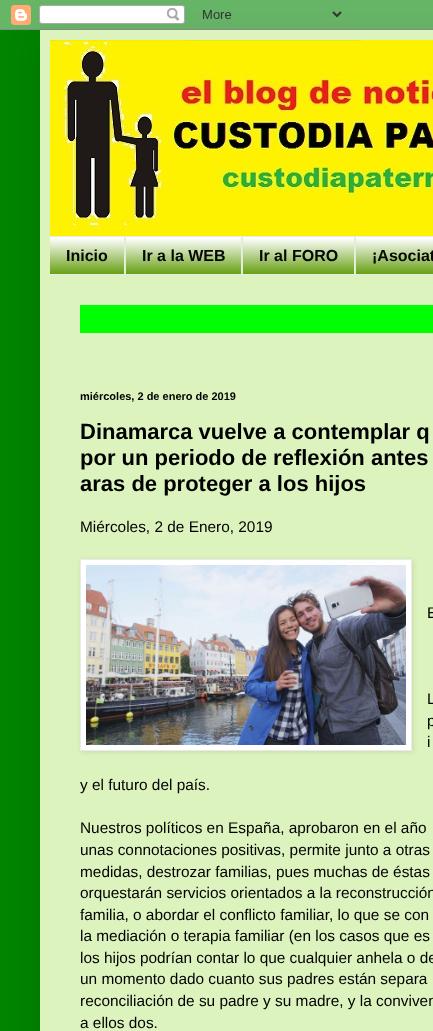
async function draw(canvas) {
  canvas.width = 433;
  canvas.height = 1031;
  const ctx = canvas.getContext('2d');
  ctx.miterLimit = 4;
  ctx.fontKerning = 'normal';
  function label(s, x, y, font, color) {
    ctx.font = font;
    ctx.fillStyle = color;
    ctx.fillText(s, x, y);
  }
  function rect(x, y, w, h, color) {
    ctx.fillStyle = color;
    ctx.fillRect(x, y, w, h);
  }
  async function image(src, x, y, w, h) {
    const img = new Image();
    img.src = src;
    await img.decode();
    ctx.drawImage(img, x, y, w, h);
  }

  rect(0, 0, 433, 1031, '#008600');
  ctx.fillStyle = '#00000026';
  ctx.filter = 'blur(20px)';
  ctx.beginPath();
  ctx.rect(40, 30, 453, 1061);
  ctx.fill();
  ctx.filter = 'none';
  await image('assets/img1.png', 0, 0, 433, 30);
  rect(40, 30, 393, 1001, '#ddf3be');
  await image('assets/img2.png', 50, 40, 383, 196);
  rect(50, 238, 383, 36, '#5f9b07');
  await image('assets/img3.png', 50, 237, 383, 37);
  rect(50, 236, 383, 1, '#ebebeb');
  rect(50, 274, 383, 1, '#ebebeb');
  rect(124, 237, 1, 37, '#ebebeb');
  label('Inicio', 66, 261, 'bold 16px Liberation Sans', '#060706');
  rect(241, 237, 1, 37, '#ebebeb');
  rect(125, 237, 1, 37, '#ddf3be');
  label('Ir a la WEB', 142, 261, 'bold 16px Liberation Sans', '#060706');
  rect(354, 237, 1, 37, '#ebebeb');
  rect(242, 237, 1, 37, '#ddf3be');
  label('Ir al FORO', 259, 261, 'bold 16px Liberation Sans', '#060706');
  rect(355, 237, 1, 37, '#ddf3be');
  label('¡Asociat', 372, 261, 'bold 16px Liberation Sans', '#060706');
  rect(80, 305, 353, 28, '#0f0');
  label('miércoles, 2 de enero de 2019', 80, 400, 'bold 11px Liberation Sans', '#000');
  label('Dinamarca vuelve a contemplar q', 80, 439, 'bold 22px Liberation Sans', '#000');
  label('por un periodo de reflexión antes', 80, 465, 'bold 22px Liberation Sans', '#000');
  label('aras de proteger a los hijos', 80, 491, 'bold 22px Liberation Sans', '#000');
  label('Miércoles, 2 de Enero, 2019', 80, 532, '15.4px Liberation Sans', '#000');
  ctx.fillStyle = '#0000001a';
  ctx.filter = 'blur(2.5px)';
  ctx.beginPath();
  ctx.rect(81, 560, 332, 192);
  ctx.fill();
  ctx.filter = 'none';
  ctx.fillStyle = '#fff';
  ctx.beginPath();
  ctx.rect(80.5, 559.5, 331, 191);
  ctx.fill();
  ctx.strokeStyle = '#ebebeb';
  ctx.stroke();
  await image('assets/img4.png', 86, 565, 320, 180);
  label('E', 427, 618, '15.4px Liberation Sans', '#000');
  label('L', 427, 704, '15.4px Liberation Sans', '#000');
  label('p', 427, 726, '15.4px Liberation Sans', '#000');
  label('i', 427, 747, '15.4px Liberation Sans', '#000');
  label('y el futuro del país.', 80, 790, '15.4px Liberation Sans', '#000');
  label('Nuestros políticos en España, aprobaron en el año', 80, 833, '15.4px Liberation Sans', '#000');
  label('unas connotaciones positivas, permite junto a otras', 80, 855, '15.4px Liberation Sans', '#000');
  label('medidas, destrozar familias, pues muchas de éstas', 80, 877, '15.4px Liberation Sans', '#000');
  label('orquestarán servicios orientados a la reconstrucción', 80, 898, '15.4px Liberation Sans', '#000');
  label('familia, o abordar el conflicto familiar, lo que se con', 80, 920, '15.4px Liberation Sans', '#000');
  label('la mediación o terapia familiar (en los casos que es', 80, 941, '15.4px Liberation Sans', '#000');
  label('los hijos podrían contar lo que cualquier anhela o de', 80, 963, '15.4px Liberation Sans', '#000');
  label('un momento dado cuanto sus padres están separa', 80, 984, '15.4px Liberation Sans', '#000');
  label('reconciliación de su padre y su madre, y la conviven', 80, 1006, '15.4px Liberation Sans', '#000');
  label('a ellos dos.', 80, 1028, '15.4px Liberation Sans', '#000');
}

draw(document.querySelector('canvas'));
